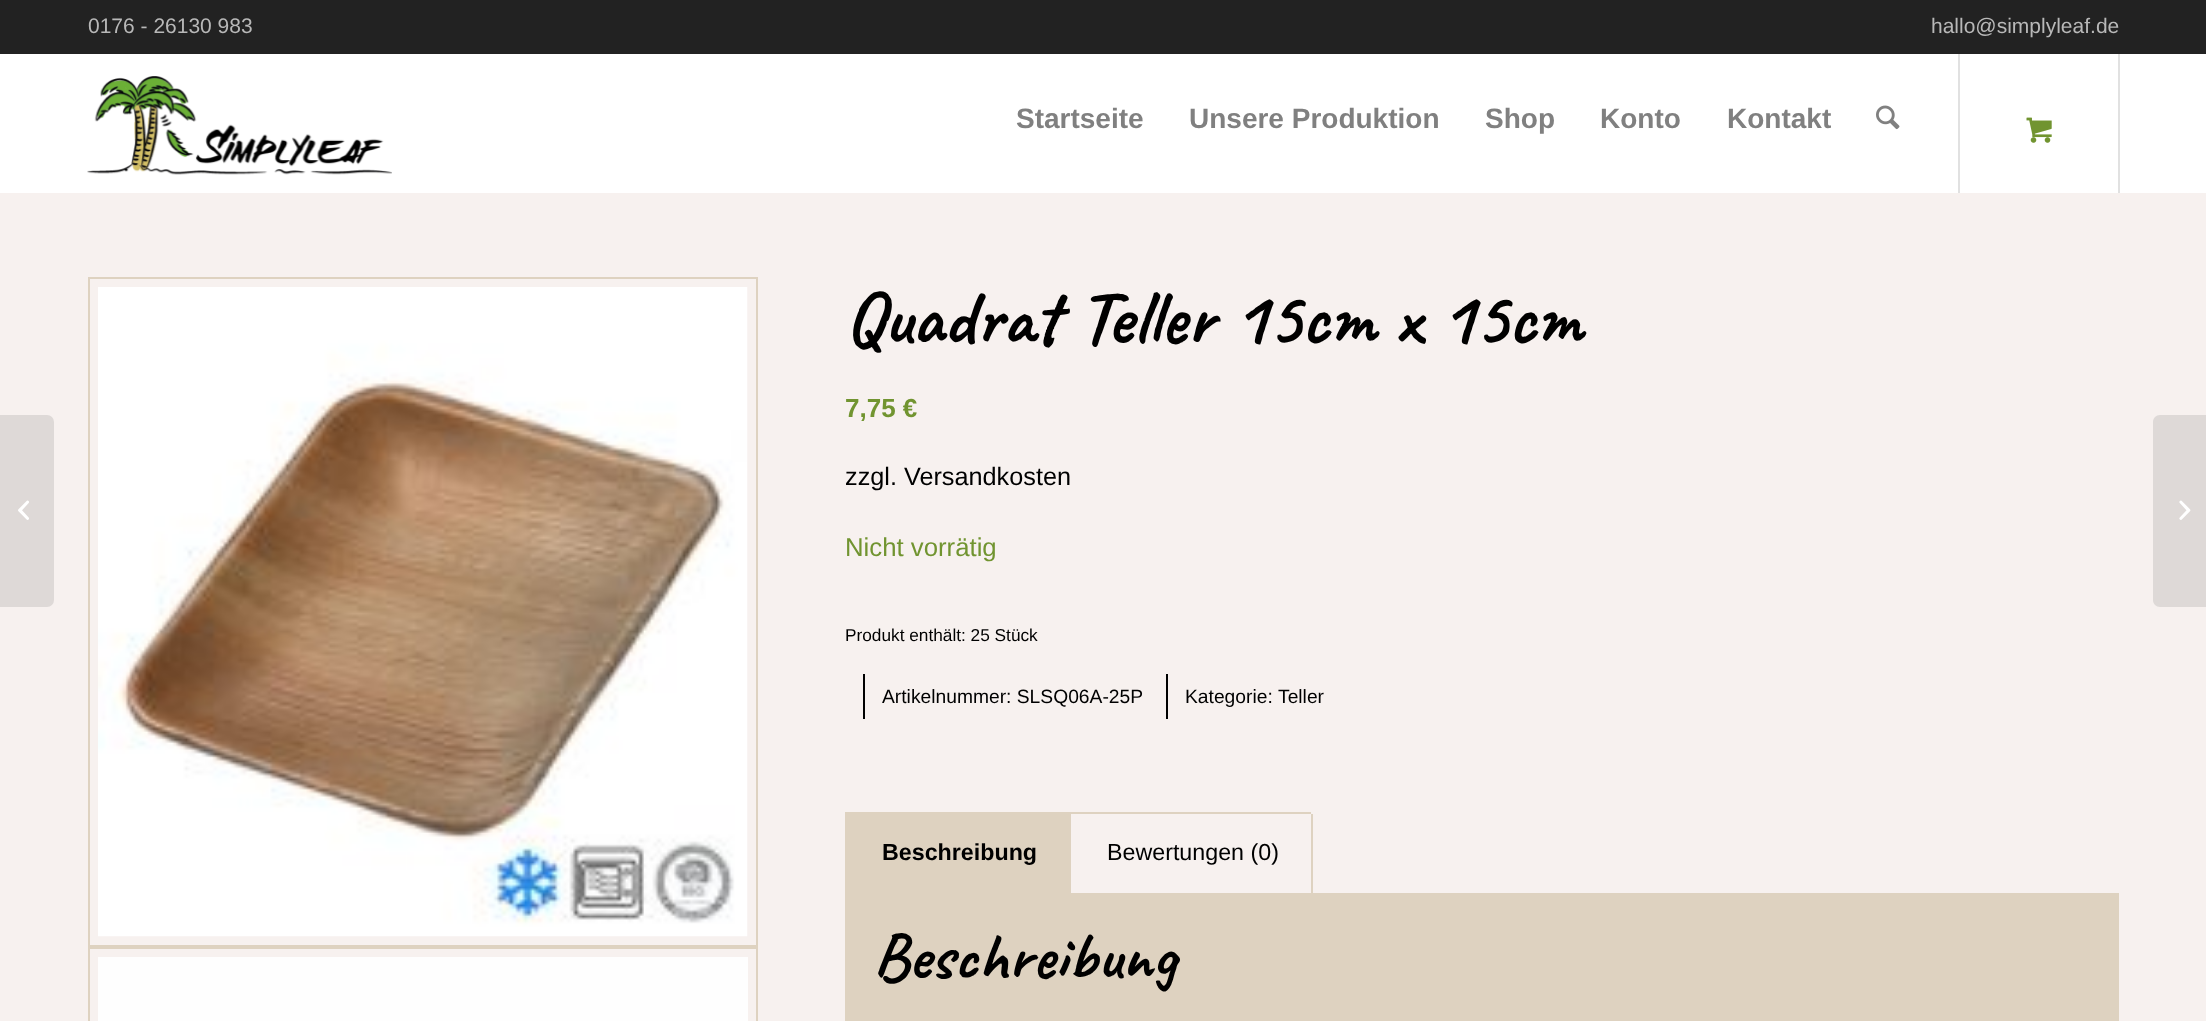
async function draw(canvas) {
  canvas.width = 2206;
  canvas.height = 1021;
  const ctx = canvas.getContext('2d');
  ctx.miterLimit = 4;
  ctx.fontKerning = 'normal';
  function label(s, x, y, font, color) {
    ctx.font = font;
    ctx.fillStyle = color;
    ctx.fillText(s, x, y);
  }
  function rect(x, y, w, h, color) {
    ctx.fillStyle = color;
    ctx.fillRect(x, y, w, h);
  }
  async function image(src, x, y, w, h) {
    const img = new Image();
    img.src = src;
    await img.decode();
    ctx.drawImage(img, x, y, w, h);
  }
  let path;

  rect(0, 0, 2206, 1021, '#f7f1ef');
  rect(0, 0, 2206, 54, '#222');
  label('0176 - 26130 983', 88, 33, '21px Liberation Sans', '#b8b8b8');
  label('hallo@simplyleaf.de', 1931, 33, '21px Liberation Sans', '#b8b8b8');
  rect(0, 54, 2206, 139, '#fff');
  await image('assets/img1.png', 87, 76, 305, 99);
  label('Startseite', 1016, 128, 'bold 28px Liberation Sans', '#808080');
  label('Unsere Produktion', 1189, 128, 'bold 28px Liberation Sans', '#808080');
  label('Shop', 1485, 128, 'bold 28px Liberation Sans', '#808080');
  label('Konto', 1600, 128, 'bold 28px Liberation Sans', '#808080');
  label('Kontakt', 1727, 128, 'bold 28px Liberation Sans', '#808080');
  await image('assets/img2.png', 1876, 105, 24, 25);
  rect(2118, 54, 2, 139, '#e1e1e1');
  rect(1958, 54, 2, 139, '#e1e1e1');
  await image('assets/img3.png', 2026, 117, 26, 26);
  ctx.fillStyle = '#ded9d7';
  ctx.beginPath();
  ctx.roundRect(0, 415, 54, 192, [0, 7, 7, 0]);
  ctx.fill();
  await image('assets/img4.png', 18, 500, 11, 20);
  ctx.strokeStyle = '#ded2c0';
  ctx.lineWidth = 2;
  ctx.strokeRect(89, 278, 668, 668);
  await image('assets/img5.png', 98, 287, 650, 650);
  ctx.strokeRect(89, 948, 668, 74);
  rect(98, 957, 650, 64, '#fefefe');
  label('Quadrat Teller 15cm x 15cm', 845, 343, 'bold 77px Caveat', '#000');
  label('7,75 €', 845, 417, 'bold 26px Liberation Sans', '#719430');
  label('zzgl. Versandkosten', 845, 485, '25.25px Liberation Sans', '#000');
  label('Nicht vorrätig', 845, 556, '25.75px Liberation Sans', '#719430');
  label('Produkt enthält: 25 Stück', 845, 641, '17.25px Liberation Sans', '#000');
  rect(863, 674, 2, 45, '#000');
  label('Artikelnummer: SLSQ06A-25P', 882, 703, '19.25px Liberation Sans', '#000');
  rect(1166, 674, 2, 45, '#000');
  label('Kategorie:', 1185, 703, '19.25px Liberation Sans', '#000');
  label('Teller', 1278, 703, '19.25px Liberation Sans', '#000');
  rect(1069, 812, 242, 2, '#ded2c0');
  rect(845, 812, 226, 81, '#ded2c0');
  label('Beschreibung', 882, 860, 'bold 23.25px Liberation Sans', '#000');
  rect(845, 893, 1274, 128, '#ded2c0');
  rect(1311, 814, 2, 80, '#ded2c0');
  label('Bewertungen (0)', 1107, 860, '23.25px Liberation Sans', '#000');
  label('Beschreibung', 873, 978, 'bold 66.5px Caveat', '#000');
  ctx.fillStyle = '#ded9d7';
  path = new Path2D('M2160 415H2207V607H2160C2156 607 2153 604 2153 600V422C2153 418 2156 415 2160 415Z');
  ctx.fill(path);
  await image('assets/img6.png', 2179, 500, 12, 20);
}

draw(document.querySelector('canvas'));
